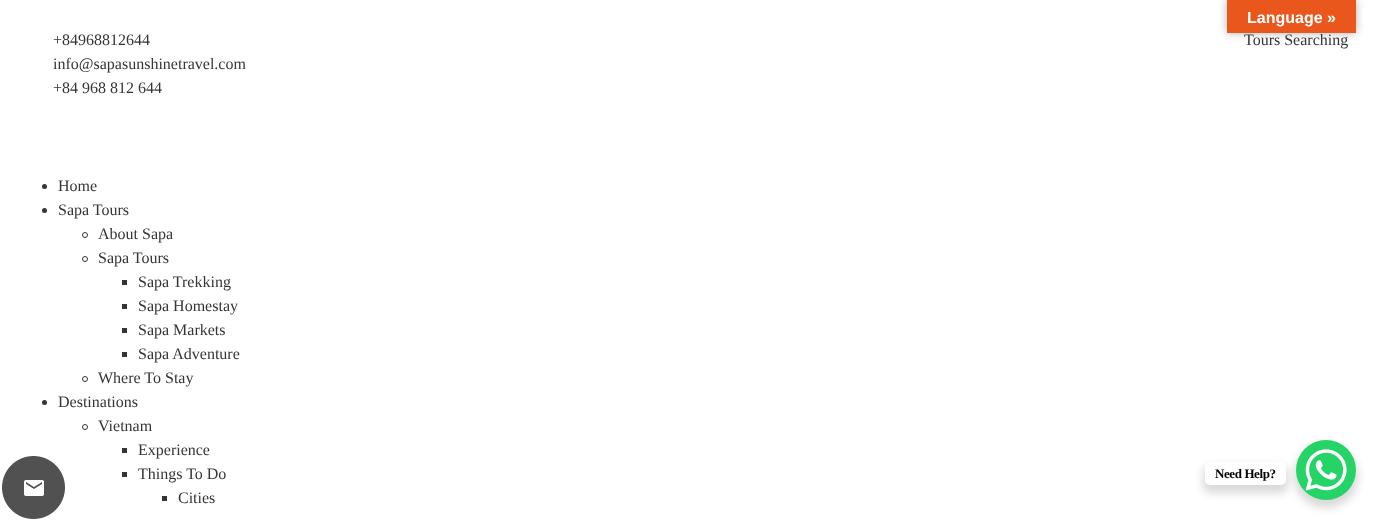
async function draw(canvas) {
  canvas.width = 1376;
  canvas.height = 520;
  const ctx = canvas.getContext('2d');
  ctx.miterLimit = 4;
  ctx.fontKerning = 'normal';
  function label(s, x, y, font, color) {
    ctx.font = font;
    ctx.fillStyle = color;
    ctx.fillText(s, x, y);
  }
  function rect(x, y, w, h, color) {
    ctx.fillStyle = color;
    ctx.fillRect(x, y, w, h);
  }
  function roundedRect(x, y, w, h, r, color) {
    ctx.fillStyle = color;
    ctx.beginPath();
    ctx.roundRect(x, y, w, h, r);
    ctx.fill();
  }
  async function image(src, x, y, w, h) {
    const img = new Image();
    img.src = src;
    await img.decode();
    ctx.drawImage(img, x, y, w, h);
  }

  rect(0, 0, 1376, 520, '#fff');
  await image('assets/img1.png', 2, 456, 63, 63);
  ctx.fillStyle = '#0000004d';
  ctx.filter = 'blur(4.5px)';
  ctx.beginPath();
  ctx.rect(1227, 0, 129, 33);
  ctx.fill();
  ctx.filter = 'none';
  rect(1227, 0, 129, 33, '#ea571d');
  label('Language »', 1247, 23, 'bold 16px Liberation Sans', '#fff');
  label('+84968812644', 53, 45, '16px Liberation Serif', '#353535');
  label('info@sapasunshinetravel.com', 53, 69, '16px Liberation Serif', '#353535');
  label('+84 968 812 644', 53, 93, '16px Liberation Serif', '#353535');
  label('Tours Searching', 1244, 45, '16px Liberation Serif', '#353535');
  ctx.beginPath();
  ctx.arc(44.5, 186.5, 2.5, 0, 2 * Math.PI);
  ctx.fill();
  label('Home', 58, 191, '16px Liberation Serif', '#353535');
  ctx.beginPath();
  ctx.arc(44.5, 210.5, 2.5, 0, 2 * Math.PI);
  ctx.fill();
  label('Sapa Tours', 58, 215, '16px Liberation Serif', '#353535');
  ctx.beginPath();
  ctx.arc(85, 235, 2.5, 0, 2 * Math.PI);
  ctx.strokeStyle = '#353535';
  ctx.stroke();
  label('About Sapa', 98, 239, '16px Liberation Serif', '#353535');
  ctx.beginPath();
  ctx.arc(85, 259, 2.5, 0, 2 * Math.PI);
  ctx.stroke();
  label('Sapa Tours', 98, 263, '16px Liberation Serif', '#353535');
  rect(122, 280, 5, 5, '#353535');
  label('Sapa Trekking', 138, 287, '16px Liberation Serif', '#353535');
  rect(122, 304, 5, 5, '#353535');
  label('Sapa Homestay', 138, 311, '16px Liberation Serif', '#353535');
  rect(122, 328, 5, 5, '#353535');
  label('Sapa Markets', 138, 335, '16px Liberation Serif', '#353535');
  rect(122, 352, 5, 5, '#353535');
  label('Sapa Adventure', 138, 359, '16px Liberation Serif', '#353535');
  ctx.beginPath();
  ctx.arc(85, 379, 2.5, 0, 2 * Math.PI);
  ctx.stroke();
  label('Where To Stay', 98, 383, '16px Liberation Serif', '#353535');
  ctx.beginPath();
  ctx.arc(44.5, 402.5, 2.5, 0, 2 * Math.PI);
  ctx.fill();
  label('Destinations', 58, 407, '16px Liberation Serif', '#353535');
  ctx.beginPath();
  ctx.arc(85, 427, 2.5, 0, 2 * Math.PI);
  ctx.stroke();
  label('Vietnam', 98, 431, '16px Liberation Serif', '#353535');
  rect(122, 448, 5, 5, '#353535');
  label('Experience', 138, 455, '16px Liberation Serif', '#353535');
  rect(122, 472, 5, 5, '#353535');
  label('Things To Do', 138, 479, '16px Liberation Serif', '#353535');
  rect(162, 496, 5, 5, '#353535');
  label('Cities', 178, 503, '16px Liberation Serif', '#353535');
  ctx.fillStyle = '#00000026';
  ctx.filter = 'blur(4px)';
  ctx.beginPath();
  ctx.roundRect(1294, 444, 64, 64, 32);
  ctx.fill();
  ctx.filter = 'none';
  ctx.fillStyle = '#25d366';
  ctx.beginPath();
  ctx.arc(1326, 470, 30, 0, 2 * Math.PI);
  ctx.fill();
  ctx.fillStyle = '#00000026';
  ctx.filter = 'blur(4px)';
  ctx.beginPath();
  ctx.roundRect(1203, 466, 85, 27, 7);
  ctx.fill();
  ctx.filter = 'none';
  roundedRect(1205, 462, 81, 23, 5, '#fff');
  ctx.letterSpacing = '-0.4px';
  label('Need Help?', 1215, 478, 'bold 13px Liberation Serif', '#000');
  await image('assets/img2.png', 1305, 449, 42, 42);
}

draw(document.querySelector('canvas'));
